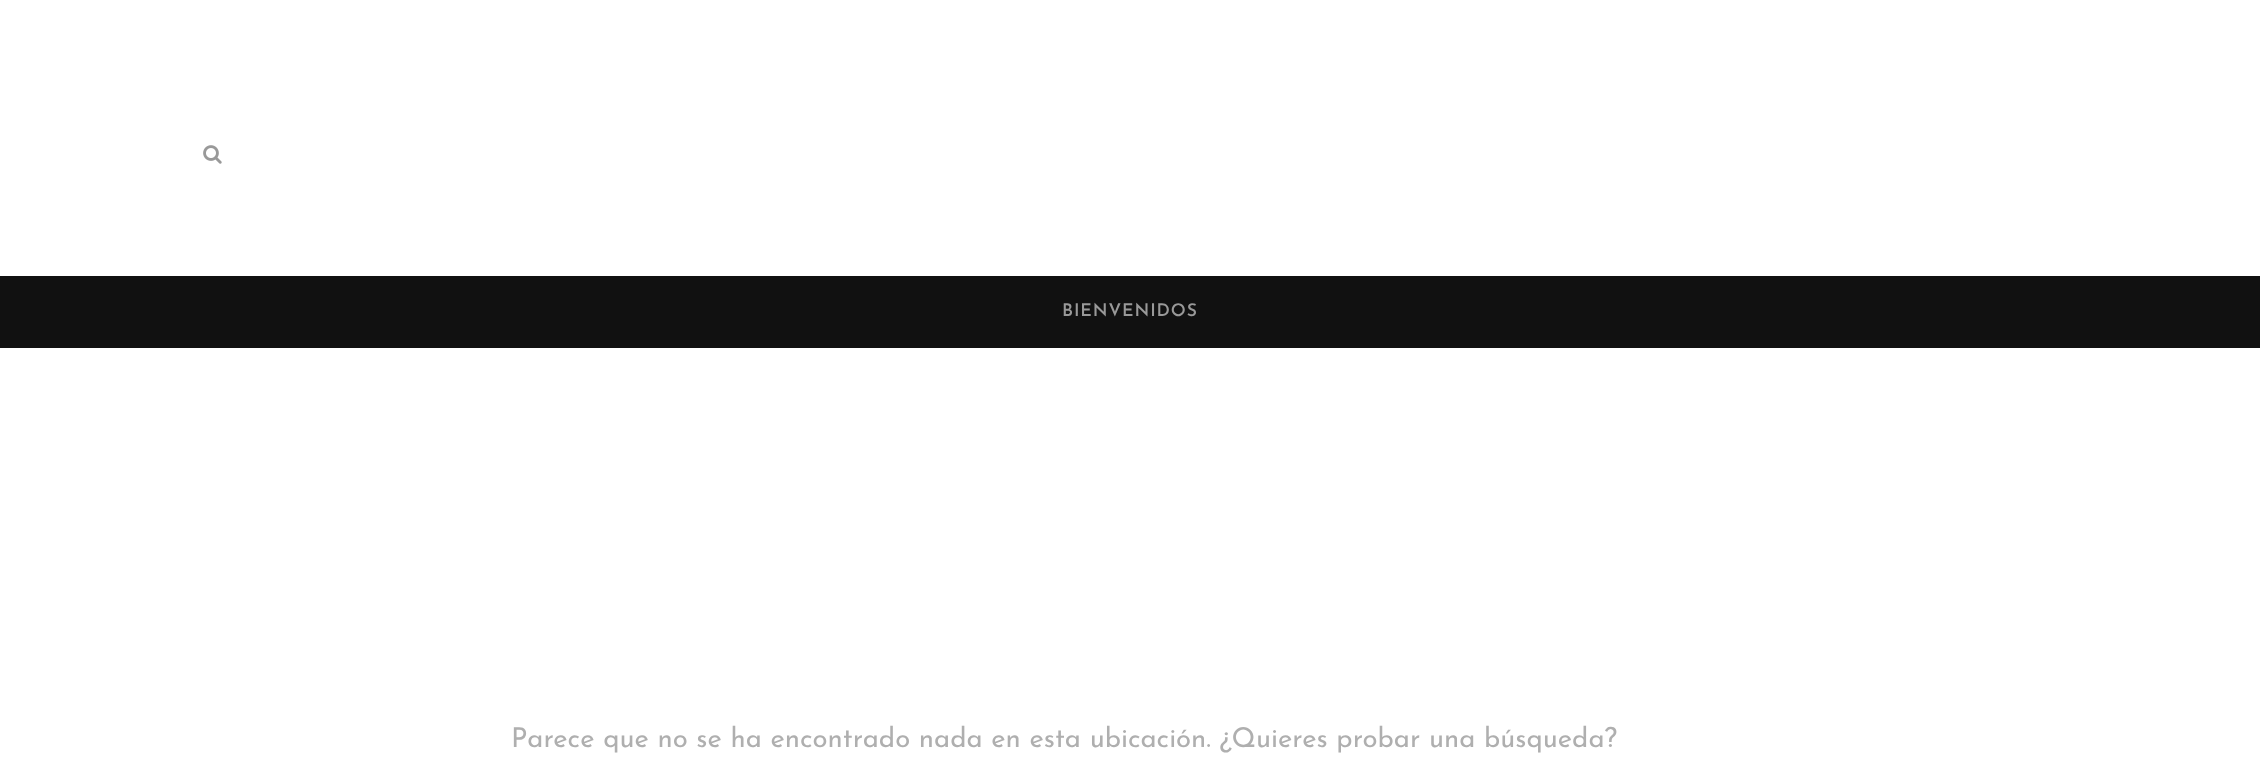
async function draw(canvas) {
  canvas.width = 2260;
  canvas.height = 772;
  const ctx = canvas.getContext('2d');
  ctx.miterLimit = 4;
  ctx.fontKerning = 'normal';
  function label(s, x, y, font, color) {
    ctx.font = font;
    ctx.fillStyle = color;
    ctx.fillText(s, x, y);
  }
  function rect(x, y, w, h, color) {
    ctx.fillStyle = color;
    ctx.fillRect(x, y, w, h);
  }
  async function image(src, x, y, w, h) {
    const img = new Image();
    img.src = src;
    await img.decode();
    ctx.drawImage(img, x, y, w, h);
  }

  rect(0, 0, 2260, 772, '#fff');
  await image('assets/img1.png', 203, 145, 19, 19);
  rect(0, 276, 2260, 72, '#111');
  ctx.letterSpacing = '0.9px';
  label('BIENVENIDOS', 1062, 316, '600 17.5px Josefin Sans', '#999');
  ctx.letterSpacing = '0px';
  label('Parece que no se ha encontrado nada en esta ubicación. ¿Quieres probar una búsqueda?', 511, 747, '27.5px Josefin Sans', '#afafaf');
}

draw(document.querySelector('canvas'));
